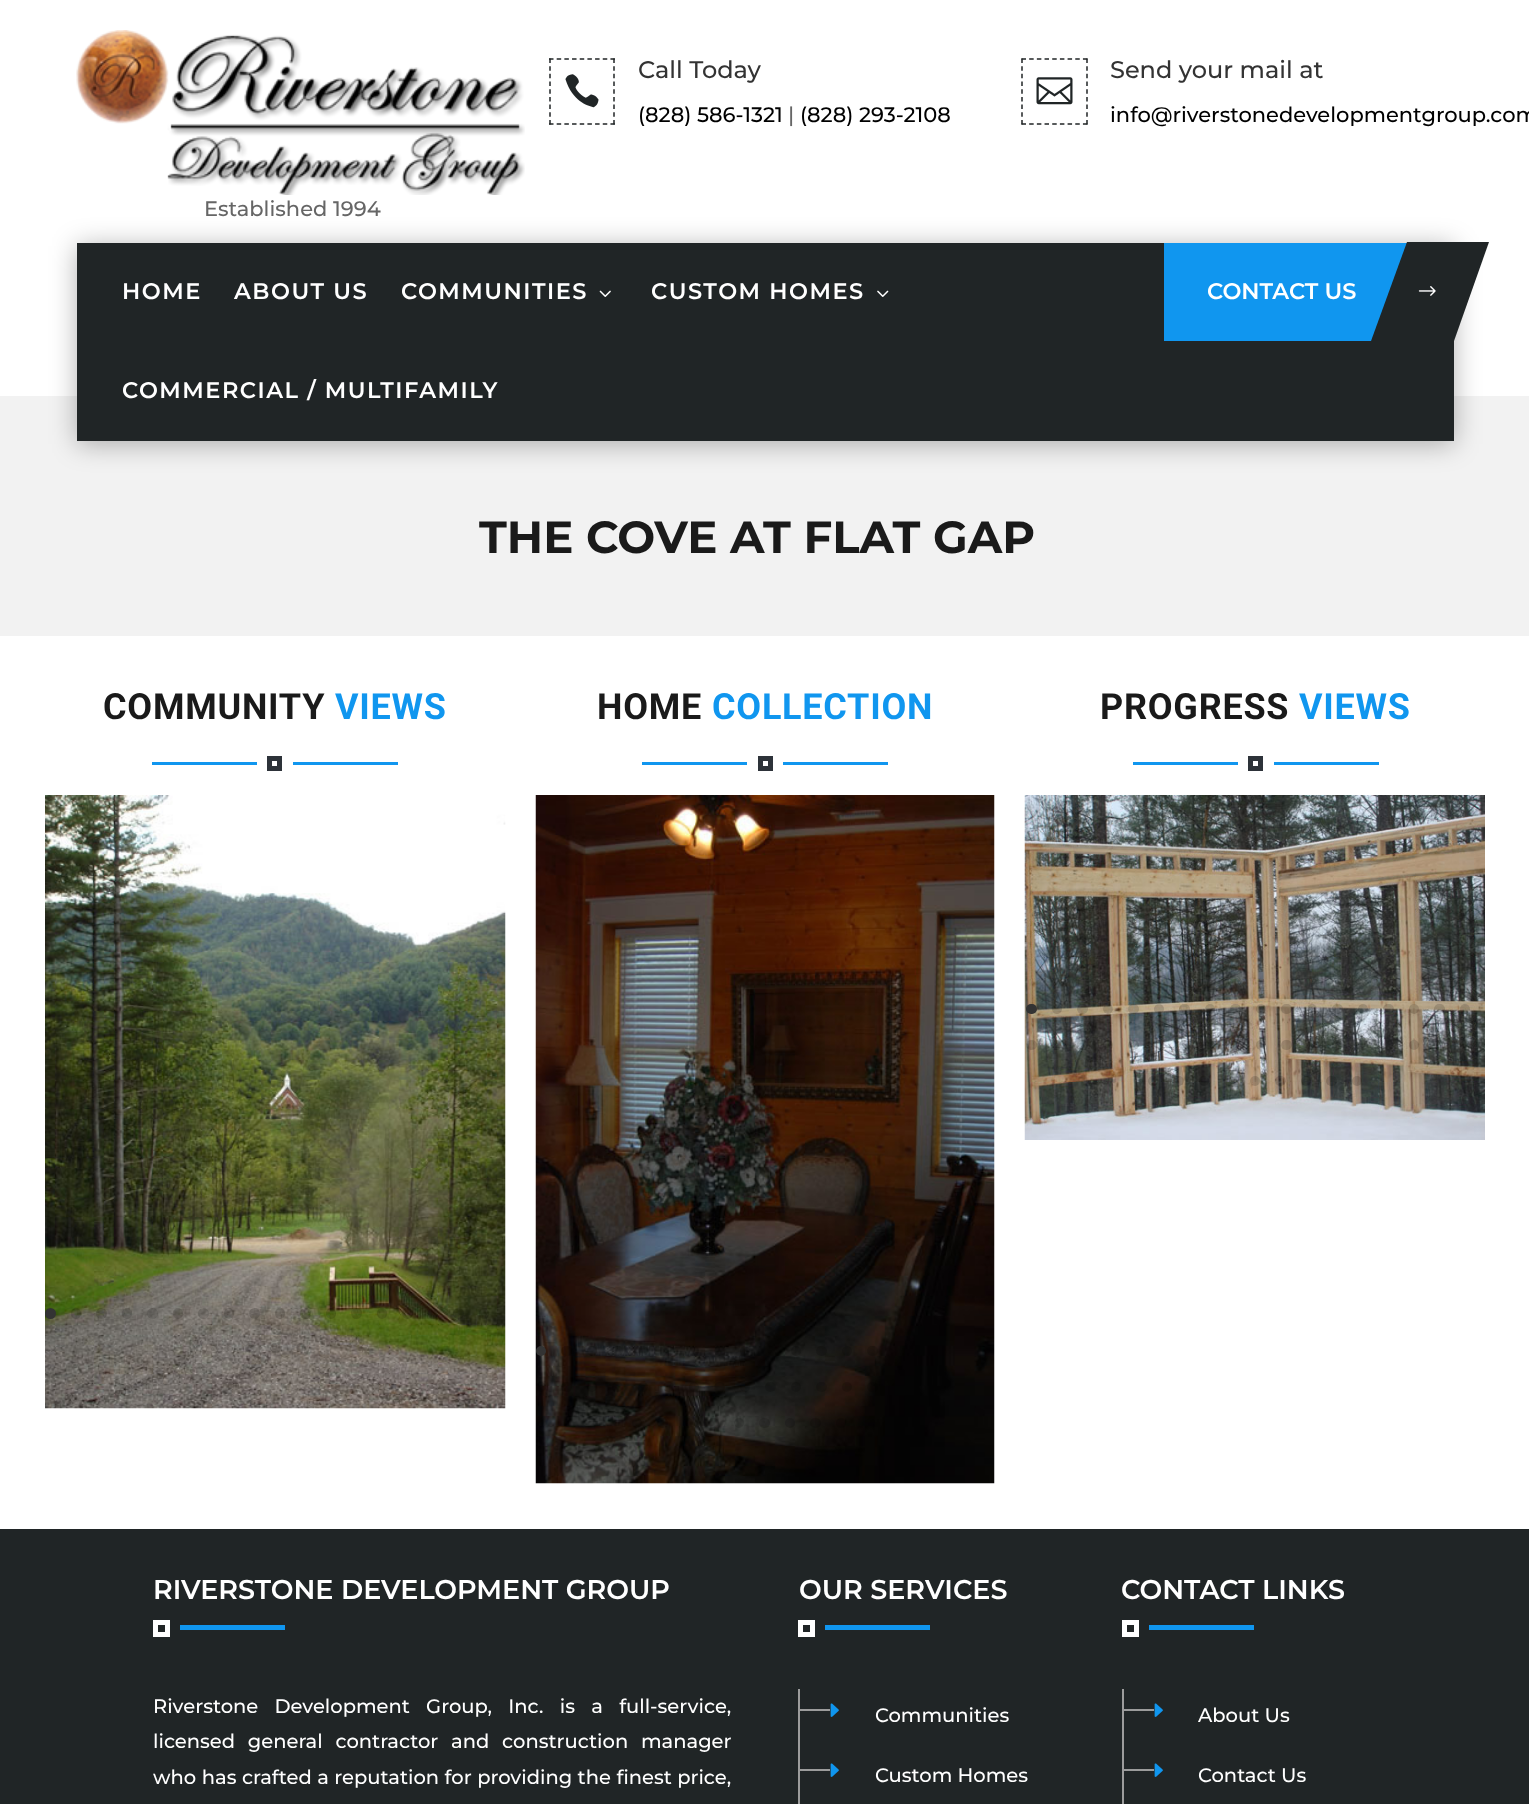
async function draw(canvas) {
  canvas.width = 1529;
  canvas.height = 1804;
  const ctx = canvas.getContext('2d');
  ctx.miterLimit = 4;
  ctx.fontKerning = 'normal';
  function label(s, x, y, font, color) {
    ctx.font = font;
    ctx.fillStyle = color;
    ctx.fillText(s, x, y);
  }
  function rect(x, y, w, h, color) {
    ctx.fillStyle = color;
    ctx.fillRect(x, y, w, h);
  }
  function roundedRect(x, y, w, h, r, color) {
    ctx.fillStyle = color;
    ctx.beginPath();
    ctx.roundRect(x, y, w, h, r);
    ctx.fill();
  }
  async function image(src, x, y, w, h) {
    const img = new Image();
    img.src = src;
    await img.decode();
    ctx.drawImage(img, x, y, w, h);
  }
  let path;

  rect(0, 0, 1529, 1804, '#fff');
  path = new Path2D('M549 59H615');
  ctx.strokeStyle = '#202526';
  ctx.lineWidth = 1.5;
  ctx.setLineDash([4.5, 3.18]);
  ctx.stroke(path);
  path = new Path2D('M614 58.5V124.5');
  ctx.stroke(path);
  path = new Path2D('M549 124H615');
  ctx.stroke(path);
  path = new Path2D('M550 58.5V124.5');
  ctx.stroke(path);
  await image('assets/img1.png', 565, 74, 34, 34);
  label('Call Today', 638, 78, '100 24px "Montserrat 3"', '#333');
  label('(828) 586-1321', 638, 122, '100 21px "Montserrat 3"', '#000');
  label('|', 788, 122, '100 21px "Montserrat 3"', '#666');
  label('(828) 293-2108', 800, 122, '100 21px "Montserrat 3"', '#000');
  path = new Path2D('M1021.5 59H1087.5');
  ctx.stroke(path);
  path = new Path2D('M1087 58.5V124.5');
  ctx.stroke(path);
  path = new Path2D('M1021.5 124H1087.5');
  ctx.stroke(path);
  path = new Path2D('M1022 58.5V124.5');
  ctx.stroke(path);
  await image('assets/img2.png', 1036, 77, 37, 28);
  label('Send your mail at', 1110, 78, '100 24px "Montserrat 3"', '#333');
  label('info@riverstonedevelopmentgroup.com', 1110, 122, '100 21px "Montserrat 3"', '#000');
  await image('assets/img3.png', 76, 30, 449, 165);
  label('Established 1994', 204, 216, '100 21px "Montserrat 3"', '#666');
  rect(0, 396, 1529, 240, '#f2f2f2');
  ctx.fillStyle = '#0000004d';
  ctx.filter = 'blur(13.5px)';
  ctx.beginPath();
  ctx.rect(77, 246, 1377, 198);
  ctx.fill();
  ctx.filter = 'none';
  rect(77, 243, 1377, 198, '#202526');
  ctx.letterSpacing = '1.5px';
  label('HOME', 122, 299, '100 22.5px "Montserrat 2"', '#fff');
  label('ABOUT US', 234, 299, '100 22.5px "Montserrat 2"', '#fff');
  label('COMMUNITIES', 401, 299, '100 22.5px "Montserrat 2"', '#fff');
  await image('assets/img4.png', 599, 290, 12, 7);
  label('CUSTOM HOMES', 651, 299, '100 22.5px "Montserrat 2"', '#fff');
  await image('assets/img5.png', 877, 290, 12, 7);
  label('COMMERCIAL / MULTIFAMILY', 122, 398, '100 22.5px "Montserrat 2"', '#fff');
  rect(1164, 243, 243, 98, '#1096ef');
  ctx.letterSpacing = '0px';
  label('CONTACT US', 1207, 299, '100 22.5px "Montserrat 2"', '#fff');
  ctx.fillStyle = '#202526';
  path = new Path2D('M1407 242H1489L1454 341H1371Z');
  ctx.fill(path);
  await image('assets/img6.png', 1418, 286, 18, 10);
  label('THE COVE AT FLAT GAP', 479, 553, '100 45px Montserrat', '#1a1a1a');
  ctx.letterSpacing = '0.75px';
  label('COMMUNITY', 103, 719, 'bold 36px Roboto', '#1a1a1a');
  label('VIEWS', 335, 719, 'bold 36px Roboto', '#1096ef');
  ctx.strokeStyle = '#2d3239';
  ctx.lineWidth = 5;
  ctx.setLineDash([]);
  ctx.strokeRect(269.5, 758.5, 10, 10);
  rect(152, 762, 105, 3, '#1096ef');
  rect(293, 762, 105, 3, '#1096ef');
  await image('assets/img7.png', 45, 795, 461, 614);
  ctx.fillStyle = '#333';
  ctx.beginPath();
  ctx.arc(50.5, 1313.5, 5.5, 0, 2 * Math.PI);
  ctx.fill();
  roundedRect(71, 1308, 10, 11, 5, '#00000026');
  ctx.beginPath();
  ctx.arc(101.5, 1313.5, 5.5, 0, 2 * Math.PI);
  ctx.fill();
  roundedRect(122, 1308, 10, 11, 5, '#00000026');
  ctx.beginPath();
  ctx.arc(152.5, 1313.5, 5.5, 0, 2 * Math.PI);
  ctx.fill();
  roundedRect(173, 1308, 10, 11, 5, '#00000026');
  ctx.beginPath();
  ctx.arc(203.5, 1313.5, 5.5, 0, 2 * Math.PI);
  ctx.fill();
  roundedRect(224, 1308, 10, 11, 5, '#00000026');
  ctx.beginPath();
  ctx.arc(254.5, 1313.5, 5.5, 0, 2 * Math.PI);
  ctx.fill();
  roundedRect(275, 1308, 10, 11, 5, '#00000026');
  ctx.beginPath();
  ctx.arc(305.5, 1313.5, 5.5, 0, 2 * Math.PI);
  ctx.fill();
  roundedRect(326, 1308, 10, 11, 5, '#00000026');
  ctx.beginPath();
  ctx.arc(356.5, 1313.5, 5.5, 0, 2 * Math.PI);
  ctx.fill();
  roundedRect(377, 1308, 10, 11, 5, '#00000026');
  ctx.beginPath();
  ctx.arc(407.5, 1313.5, 5.5, 0, 2 * Math.PI);
  ctx.fill();
  roundedRect(428, 1308, 10, 11, 5, '#00000026');
  ctx.beginPath();
  ctx.arc(458.5, 1313.5, 5.5, 0, 2 * Math.PI);
  ctx.fill();
  roundedRect(479, 1308, 10, 11, 5, '#00000026');
  ctx.beginPath();
  ctx.arc(250, 1348, 5, 0, 2 * Math.PI);
  ctx.fill();
  roundedRect(270, 1343, 11, 10, 5, '#00000026');
  ctx.beginPath();
  ctx.arc(301, 1348, 5, 0, 2 * Math.PI);
  ctx.fill();
  label('HOME', 597, 719, 'bold 36px Roboto', '#1a1a1a');
  label('COLLECTION', 712, 719, 'bold 36px Roboto', '#1096ef');
  ctx.strokeRect(760.5, 758.5, 10, 10);
  rect(642, 762, 105, 3, '#1096ef');
  rect(783, 762, 105, 3, '#1096ef');
  await image('assets/img8.png', 535, 795, 460, 689);
  ctx.fillStyle = '#333';
  ctx.beginPath();
  ctx.arc(541, 1351, 5, 0, 2 * Math.PI);
  ctx.fill();
  roundedRect(561, 1346, 11, 10, 5, '#00000026');
  ctx.beginPath();
  ctx.arc(592, 1351, 5, 0, 2 * Math.PI);
  ctx.fill();
  roundedRect(612, 1346, 11, 10, 5, '#00000026');
  ctx.beginPath();
  ctx.arc(643, 1351, 5, 0, 2 * Math.PI);
  ctx.fill();
  roundedRect(663, 1346, 11, 10, 5, '#00000026');
  ctx.beginPath();
  ctx.arc(694, 1351, 5, 0, 2 * Math.PI);
  ctx.fill();
  roundedRect(714, 1346, 11, 10, 5, '#00000026');
  ctx.beginPath();
  ctx.arc(745, 1351, 5, 0, 2 * Math.PI);
  ctx.fill();
  ctx.beginPath();
  ctx.arc(796, 1351, 5, 0, 2 * Math.PI);
  ctx.fill();
  roundedRect(816, 1346, 11, 10, 5, '#00000026');
  ctx.beginPath();
  ctx.arc(847, 1351, 5, 0, 2 * Math.PI);
  ctx.fill();
  roundedRect(867, 1346, 11, 10, 5, '#00000026');
  ctx.beginPath();
  ctx.arc(541, 1387, 5, 0, 2 * Math.PI);
  ctx.fill();
  roundedRect(561, 1382, 11, 10, 5, '#00000026');
  ctx.beginPath();
  ctx.arc(592, 1387, 5, 0, 2 * Math.PI);
  ctx.fill();
  roundedRect(612, 1382, 11, 10, 5, '#00000026');
  ctx.beginPath();
  ctx.arc(643, 1387, 5, 0, 2 * Math.PI);
  ctx.fill();
  roundedRect(663, 1382, 11, 10, 5, '#00000026');
  ctx.beginPath();
  ctx.arc(694, 1387, 5, 0, 2 * Math.PI);
  ctx.fill();
  roundedRect(714, 1382, 11, 10, 5, '#00000026');
  ctx.beginPath();
  ctx.arc(745, 1387, 5, 0, 2 * Math.PI);
  ctx.fill();
  roundedRect(765, 1382, 11, 10, 5, '#00000026');
  ctx.beginPath();
  ctx.arc(796, 1387, 5, 0, 2 * Math.PI);
  ctx.fill();
  roundedRect(816, 1382, 11, 10, 5, '#00000026');
  ctx.beginPath();
  ctx.arc(847, 1387, 5, 0, 2 * Math.PI);
  ctx.fill();
  roundedRect(867, 1382, 11, 10, 5, '#00000026');
  ctx.beginPath();
  ctx.arc(637, 1423, 5, 0, 2 * Math.PI);
  ctx.fill();
  roundedRect(657, 1418, 11, 10, 5, '#00000026');
  ctx.beginPath();
  ctx.arc(688, 1423, 5, 0, 2 * Math.PI);
  ctx.fill();
  roundedRect(708, 1418, 11, 10, 5, '#00000026');
  ctx.beginPath();
  ctx.arc(739, 1423, 5, 0, 2 * Math.PI);
  ctx.fill();
  roundedRect(759, 1418, 11, 10, 5, '#00000026');
  ctx.beginPath();
  ctx.arc(790, 1423, 5, 0, 2 * Math.PI);
  ctx.fill();
  roundedRect(810, 1418, 11, 10, 5, '#00000026');
  ctx.beginPath();
  ctx.arc(841, 1423, 5, 0, 2 * Math.PI);
  ctx.fill();
  label('PROGRESS', 1100, 719, 'bold 36px Roboto', '#1a1a1a');
  label('VIEWS', 1299, 719, 'bold 36px Roboto', '#1096ef');
  ctx.strokeRect(1250.5, 758.5, 10, 10);
  rect(1133, 762, 105, 3, '#1096ef');
  rect(1274, 762, 105, 3, '#1096ef');
  await image('assets/img9.png', 1024, 795, 461, 345);
  roundedRect(1026, 1004, 11, 10, 5, '#333');
  ctx.fillStyle = '#00000026';
  ctx.beginPath();
  ctx.arc(1057, 1009, 5, 0, 2 * Math.PI);
  ctx.fill();
  roundedRect(1077, 1004, 11, 10, 5, '#00000026');
  ctx.beginPath();
  ctx.arc(1108, 1009, 5, 0, 2 * Math.PI);
  ctx.fill();
  roundedRect(1128, 1004, 11, 10, 5, '#00000026');
  ctx.beginPath();
  ctx.arc(1159, 1009, 5, 0, 2 * Math.PI);
  ctx.fill();
  roundedRect(1179, 1004, 11, 10, 5, '#00000026');
  ctx.beginPath();
  ctx.arc(1210, 1009, 5, 0, 2 * Math.PI);
  ctx.fill();
  roundedRect(1230, 1004, 11, 10, 5, '#00000026');
  ctx.beginPath();
  ctx.arc(1261, 1009, 5, 0, 2 * Math.PI);
  ctx.fill();
  roundedRect(1281, 1004, 11, 10, 5, '#00000026');
  ctx.beginPath();
  ctx.arc(1312, 1009, 5, 0, 2 * Math.PI);
  ctx.fill();
  roundedRect(1332, 1004, 11, 10, 5, '#00000026');
  ctx.beginPath();
  ctx.arc(1363, 1009, 5, 0, 2 * Math.PI);
  ctx.fill();
  roundedRect(1383, 1004, 11, 10, 5, '#00000026');
  ctx.beginPath();
  ctx.arc(1414, 1009, 5, 0, 2 * Math.PI);
  ctx.fill();
  roundedRect(1434, 1004, 11, 10, 5, '#00000026');
  ctx.beginPath();
  ctx.arc(1465, 1009, 5, 0, 2 * Math.PI);
  ctx.fill();
  roundedRect(1026, 1040, 11, 10, 5, '#00000026');
  ctx.beginPath();
  ctx.arc(1057, 1045, 5, 0, 2 * Math.PI);
  ctx.fill();
  roundedRect(1077, 1040, 11, 10, 5, '#00000026');
  ctx.beginPath();
  ctx.arc(1108, 1045, 5, 0, 2 * Math.PI);
  ctx.fill();
  roundedRect(1128, 1040, 11, 10, 5, '#00000026');
  ctx.beginPath();
  ctx.arc(1159, 1045, 5, 0, 2 * Math.PI);
  ctx.fill();
  roundedRect(1179, 1040, 11, 10, 5, '#00000026');
  ctx.beginPath();
  ctx.arc(1210, 1045, 5, 0, 2 * Math.PI);
  ctx.fill();
  roundedRect(1230, 1040, 11, 10, 5, '#00000026');
  ctx.beginPath();
  ctx.arc(1261, 1045, 5, 0, 2 * Math.PI);
  ctx.fill();
  roundedRect(1281, 1040, 11, 10, 5, '#00000026');
  ctx.beginPath();
  ctx.arc(1312, 1045, 5, 0, 2 * Math.PI);
  ctx.fill();
  roundedRect(1332, 1040, 11, 10, 5, '#00000026');
  ctx.beginPath();
  ctx.arc(1363, 1045, 5, 0, 2 * Math.PI);
  ctx.fill();
  roundedRect(1383, 1040, 11, 10, 5, '#00000026');
  ctx.beginPath();
  ctx.arc(1414, 1045, 5, 0, 2 * Math.PI);
  ctx.fill();
  roundedRect(1434, 1040, 11, 10, 5, '#00000026');
  ctx.beginPath();
  ctx.arc(1465, 1045, 5, 0, 2 * Math.PI);
  ctx.fill();
  ctx.beginPath();
  ctx.arc(1153, 1081, 5, 0, 2 * Math.PI);
  ctx.fill();
  roundedRect(1173, 1076, 11, 10, 5, '#00000026');
  ctx.beginPath();
  ctx.arc(1204, 1081, 5, 0, 2 * Math.PI);
  ctx.fill();
  roundedRect(1224, 1076, 11, 10, 5, '#00000026');
  ctx.beginPath();
  ctx.arc(1255, 1081, 5, 0, 2 * Math.PI);
  ctx.fill();
  roundedRect(1275, 1076, 11, 10, 5, '#00000026');
  ctx.beginPath();
  ctx.arc(1306, 1081, 5, 0, 2 * Math.PI);
  ctx.fill();
  roundedRect(1326, 1076, 11, 10, 5, '#00000026');
  ctx.beginPath();
  ctx.arc(1357, 1081, 5, 0, 2 * Math.PI);
  ctx.fill();
  rect(0, 1529, 1529, 275, '#202526');
  ctx.letterSpacing = '0px';
  label('RIVERSTONE DEVELOPMENT GROUP', 153, 1599, '100 27px "Montserrat 2"', '#fff');
  ctx.strokeStyle = '#fff';
  ctx.strokeRect(155.5, 1622.5, 12, 12);
  rect(180, 1625, 105, 5, '#1096ef');
  ctx.wordSpacing = '11px';
  label('Riverstone Development Group, Inc. is a full-service,', 153, 1713, '100 19.5px "Montserrat 3"', '#fff');
  ctx.wordSpacing = '7.5px';
  label('licensed general contractor and construction manager', 153, 1748, '100 19.5px "Montserrat 3"', '#fff');
  ctx.wordSpacing = '0.25px';
  label('who has crafted a reputation for providing the finest price,', 153, 1784, '100 19.5px "Montserrat 3"', '#fff');
  ctx.wordSpacing = '0px';
  label('OUR SERVICES', 799, 1599, '100 27px "Montserrat 2"', '#fff');
  ctx.strokeRect(800.5, 1622.5, 12, 12);
  rect(825, 1625, 105, 5, '#1096ef');
  rect(798, 1689, 2, 115, '#9c9c9c');
  await image('assets/img10.png', 830, 1703, 9, 14);
  rect(800, 1709, 30, 2, '#9c9c9c');
  label('Communities', 875, 1722, '100 19.5px "Montserrat 3"', '#fff');
  await image('assets/img10.png', 830, 1763, 9, 14);
  rect(800, 1769, 30, 2, '#9c9c9c');
  label('Custom Homes', 875, 1782, '100 19.5px "Montserrat 3"', '#fff');
  label('CONTACT LINKS', 1121, 1599, '100 27px "Montserrat 2"', '#fff');
  ctx.strokeRect(1124.5, 1622.5, 12, 12);
  rect(1149, 1625, 105, 5, '#1096ef');
  rect(1122, 1689, 2, 115, '#9c9c9c');
  await image('assets/img10.png', 1154, 1703, 9, 14);
  rect(1124, 1709, 30, 2, '#9c9c9c');
  label('About Us', 1198, 1722, '100 19.5px "Montserrat 3"', '#fff');
  await image('assets/img10.png', 1154, 1763, 9, 14);
  rect(1124, 1769, 30, 2, '#9c9c9c');
  label('Contact Us', 1198, 1782, '100 19.5px "Montserrat 3"', '#fff');
}

draw(document.querySelector('canvas'));
